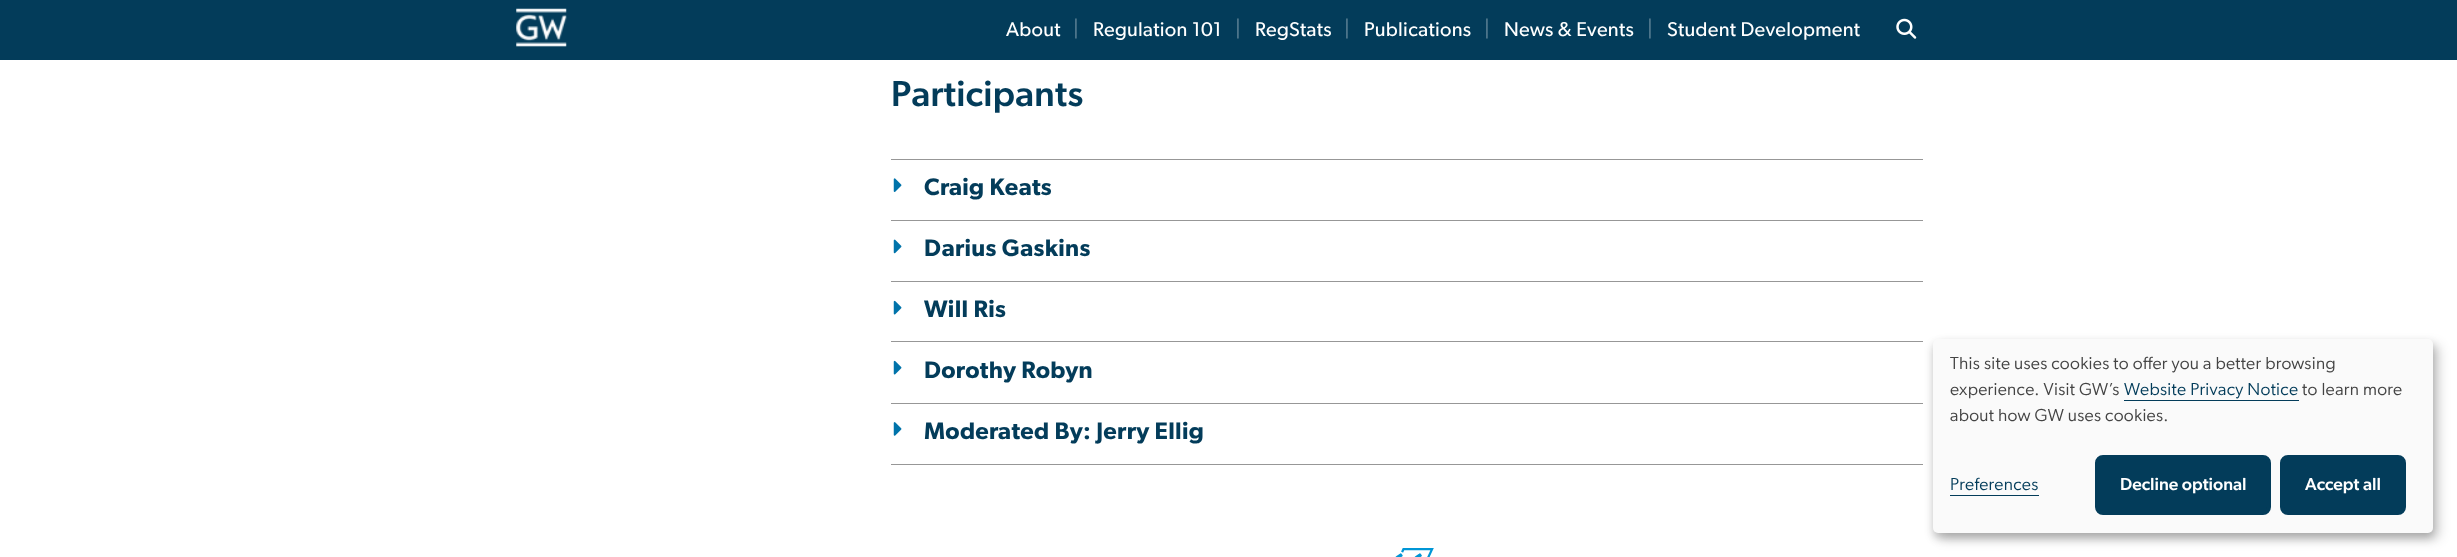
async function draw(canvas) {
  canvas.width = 2457;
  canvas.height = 557;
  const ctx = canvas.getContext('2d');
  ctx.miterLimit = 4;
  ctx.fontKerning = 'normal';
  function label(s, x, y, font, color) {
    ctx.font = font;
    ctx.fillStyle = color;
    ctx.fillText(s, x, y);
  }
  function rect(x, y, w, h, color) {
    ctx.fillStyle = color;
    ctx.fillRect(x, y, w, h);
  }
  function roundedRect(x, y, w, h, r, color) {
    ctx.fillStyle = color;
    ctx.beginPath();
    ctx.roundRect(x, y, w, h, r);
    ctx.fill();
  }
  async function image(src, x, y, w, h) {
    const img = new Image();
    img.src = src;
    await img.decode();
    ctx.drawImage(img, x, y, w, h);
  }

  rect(0, 0, 2457, 557, '#fff');
  rect(0, 0, 2457, 60, '#033c5a');
  await image('assets/img1.png', 516, 8, 51, 39);
  ctx.letterSpacing = '0.3px';
  label('About', 1006, 36, '20px "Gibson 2"', '#fff');
  label('|', 1073, 36, '22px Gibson', '#688a9c');
  label('Regulation 101', 1093, 36, '20px "Gibson 2"', '#fff');
  label('|', 1235, 36, '22px Gibson', '#688a9c');
  label('RegStats', 1255, 36, '20px "Gibson 2"', '#fff');
  label('|', 1344, 36, '22px Gibson', '#688a9c');
  label('Publications', 1364, 36, '20px "Gibson 2"', '#fff');
  label('|', 1484, 36, '22px Gibson', '#688a9c');
  label('News & Events', 1504, 36, '20px "Gibson 2"', '#fff');
  label('|', 1647, 36, '22px Gibson', '#688a9c');
  label('Student Development', 1667, 36, '20px "Gibson 2"', '#fff');
  await image('assets/img2.png', 1896, 18, 21, 21);
  label('Participants', 891, 106, '500 36.25px Gibson', '#033c5a');
  rect(891, 464, 1032, 1, '#979797');
  rect(891, 159, 1032, 1, '#979797');
  await image('assets/img3.png', 893, 178, 9, 14);
  label('Craig Keats', 924, 195, '600 24px Gibson', '#033c5a');
  rect(891, 220, 1032, 1, '#979797');
  await image('assets/img4.png', 893, 239, 9, 15);
  label('Darius Gaskins', 924, 256, '600 24px Gibson', '#033c5a');
  rect(891, 281, 1032, 1, '#979797');
  await image('assets/img5.png', 893, 300, 9, 15);
  label('Will Ris', 924, 317, '600 24px Gibson', '#033c5a');
  rect(891, 341, 1032, 1, '#979797');
  await image('assets/img5.png', 893, 360, 9, 15);
  label('Dorothy Robyn', 924, 378, '600 24px Gibson', '#033c5a');
  rect(891, 403, 1032, 1, '#979797');
  await image('assets/img6.png', 893, 422, 9, 14);
  label('Moderated By: Jerry Ellig', 924, 439, '600 24px Gibson', '#033c5a');
  await image('assets/img7.png', 1395, 548, 39, 9);
  ctx.fillStyle = '#00000030';
  ctx.filter = 'blur(6px)';
  ctx.beginPath();
  ctx.roundRect(1939, 345, 500, 194, 5);
  ctx.fill();
  ctx.filter = 'none';
  ctx.fillStyle = '#00000033';
  ctx.filter = 'blur(4px)';
  ctx.beginPath();
  ctx.roundRect(1933, 344, 500, 194, 5);
  ctx.fill();
  ctx.filter = 'none';
  roundedRect(1933, 339, 500, 194, 5, '#fafafa');
  label('This site uses cookies to offer you a better browsing', 1950, 369, '17.5px Gibson', '#444');
  label('experience. Visit GW’s', 1950, 395, '17.5px Gibson', '#444');
  rect(2124, 400, 175, 1, '#033c5a');
  label('Website Privacy Notice', 2124, 395, '17.5px Gibson', '#033c5a');
  label('to learn more', 2302, 395, '17.5px Gibson', '#444');
  label('about how GW uses cookies.', 1950, 421, '17.5px Gibson', '#444');
  rect(1950, 495, 89, 1, '#033c5a');
  label('Preferences', 1950, 490, '17.5px Gibson', '#033c5a');
  ctx.beginPath();
  ctx.roundRect(2097, 457, 172, 56, 6);
  ctx.fill();
  ctx.strokeStyle = '#033c5a';
  ctx.lineWidth = 4;
  ctx.stroke();
  ctx.letterSpacing = '0px';
  label('Decline optional', 2120, 490, '500 17.5px Gibson', '#fff');
  ctx.fillStyle = '#033c5a';
  ctx.beginPath();
  ctx.roundRect(2282, 457, 122, 56, 6);
  ctx.fill();
  ctx.stroke();
  label('Accept all', 2305, 490, '500 17.5px Gibson', '#fff');
}

draw(document.querySelector('canvas'));
